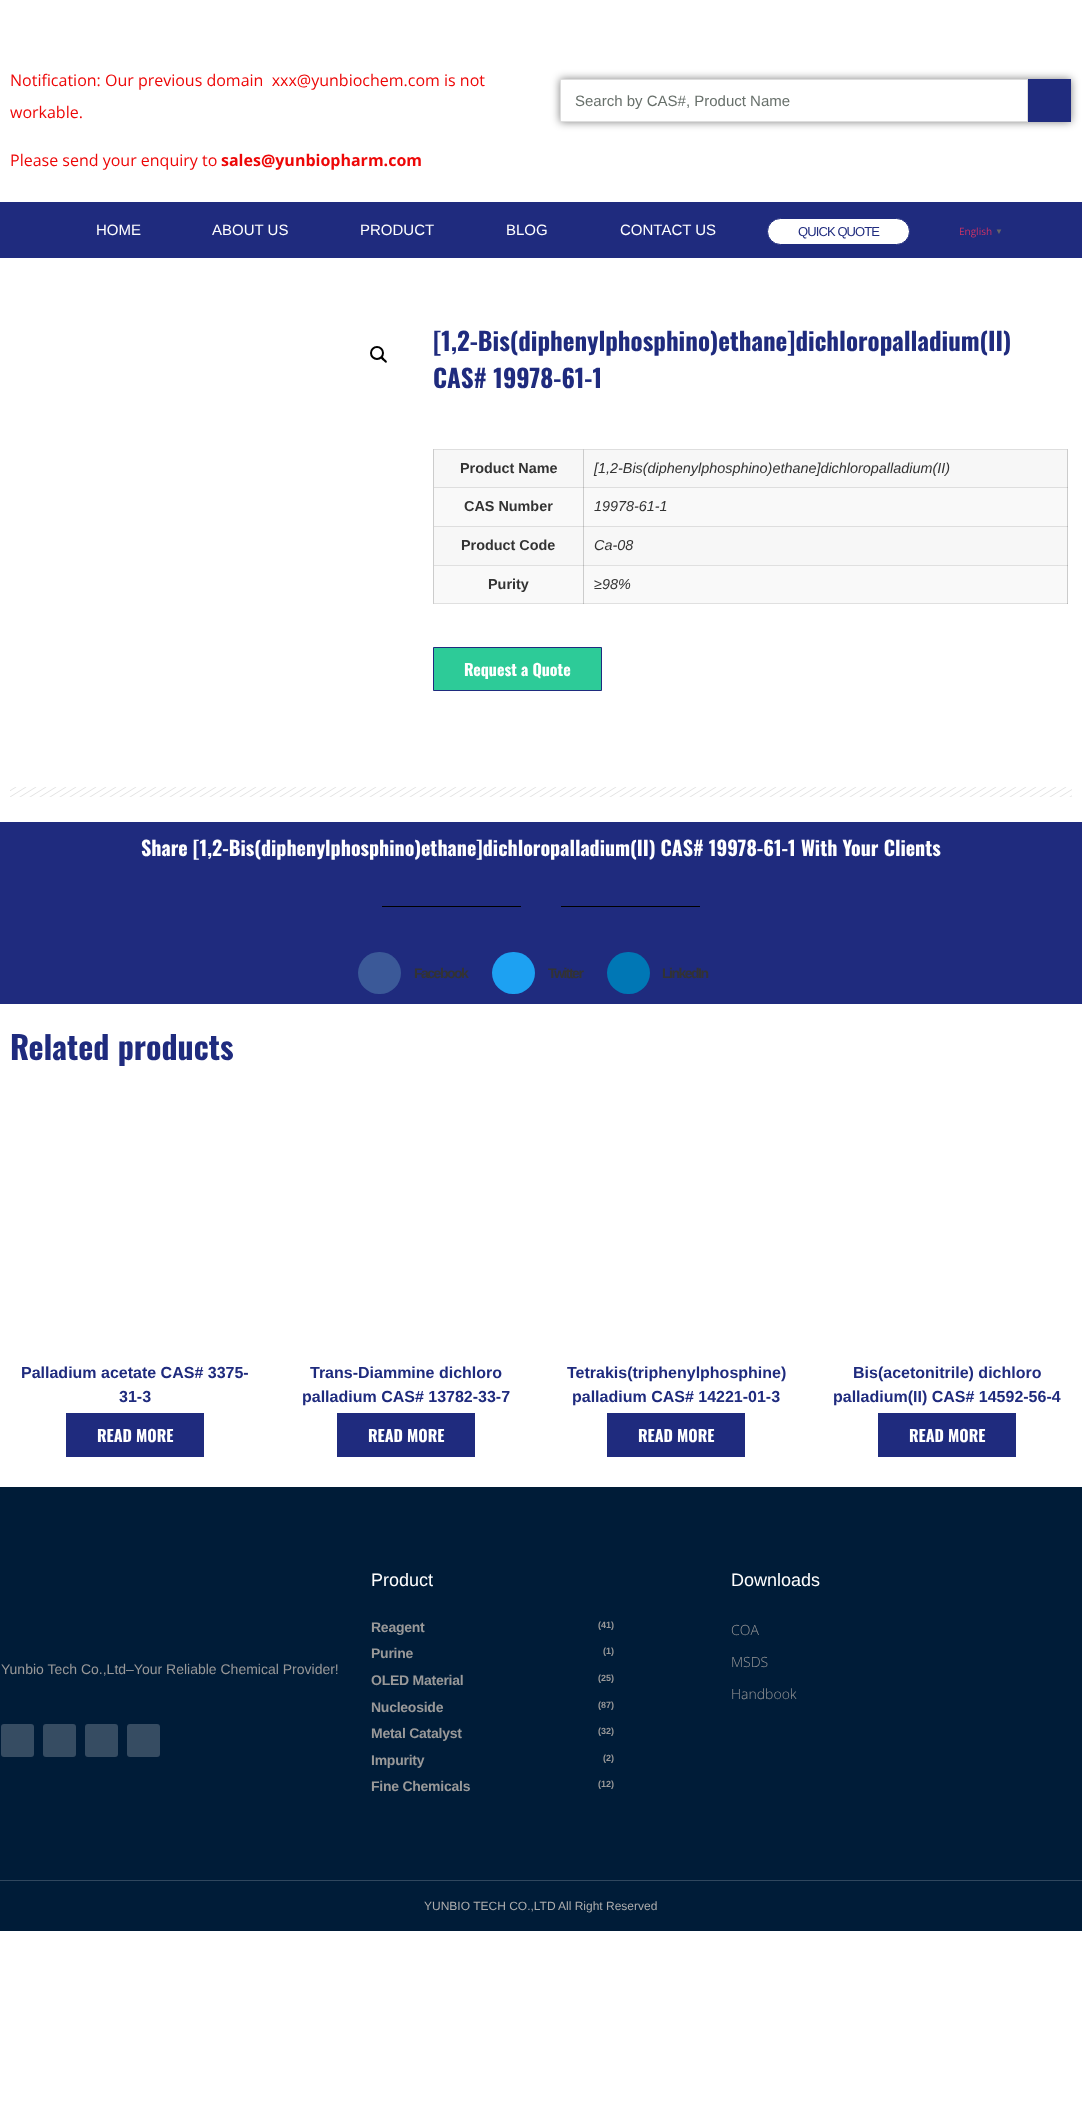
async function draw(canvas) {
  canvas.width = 1082;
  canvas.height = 2123;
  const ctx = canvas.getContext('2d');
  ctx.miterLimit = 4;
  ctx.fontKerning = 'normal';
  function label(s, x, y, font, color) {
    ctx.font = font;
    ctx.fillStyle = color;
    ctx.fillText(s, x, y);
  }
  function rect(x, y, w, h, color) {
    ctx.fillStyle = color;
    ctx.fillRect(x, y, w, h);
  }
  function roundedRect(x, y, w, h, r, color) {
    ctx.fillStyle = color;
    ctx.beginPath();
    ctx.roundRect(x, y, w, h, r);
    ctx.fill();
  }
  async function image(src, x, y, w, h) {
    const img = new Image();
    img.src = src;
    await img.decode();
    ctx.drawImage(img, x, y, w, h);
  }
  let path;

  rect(0, 0, 1082, 2123, '#fff');
  label('Notification: Our previous domain  xxx@yunbiochem.com is not', 10, 86, '16px Open Sans', '#ed0707');
  label('workable.', 10, 118, '16px Open Sans', '#ed0707');
  label('Please send your enquiry to', 10, 166, '16px Open Sans', '#ed0707');
  label('sales@yunbiopharm.com', 221, 166, 'bold 16px Open Sans', '#ed0707');
  ctx.save();
  path = new Path2D('M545 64H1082V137H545ZM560 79H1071V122H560Z');
  ctx.clip(path, 'evenodd');
  ctx.fillStyle = '#00000080';
  ctx.filter = 'blur(4.5px)';
  ctx.beginPath();
  ctx.rect(560, 79, 511, 43);
  ctx.fill();
  ctx.filter = 'none';
  ctx.restore();
  ctx.strokeStyle = '#ddd';
  ctx.strokeRect(560.5, 79.5, 467, 42);
  label('Search by CAS#, Product Name', 575, 106, '15px Liberation Sans', '#68706b');
  rect(1028, 79, 43, 43, '#1f2b7e');
  rect(0, 202, 1082, 56, '#1f2b7e');
  label('HOME', 96, 235, '15px Liberation Sans', '#fff');
  label('ABOUT US', 212, 235, '15px Liberation Sans', '#fff');
  label('PRODUCT', 360, 235, '15px Liberation Sans', '#fff');
  label('BLOG', 506, 235, '15px Liberation Sans', '#fff');
  label('CONTACT US', 620, 235, '15px Liberation Sans', '#fff');
  ctx.beginPath();
  ctx.roundRect(767.5, 218.5, 142, 26, 13);
  ctx.fill();
  ctx.strokeStyle = '#1f2b7e';
  ctx.stroke();
  ctx.letterSpacing = '-0.9px';
  label('QUICK QUOTE', 798, 236, '13px Liberation Sans', '#1f2b7e');
  ctx.letterSpacing = '0px';
  label('English', 959, 235, '10px Open Sans', '#c36');
  label('▼', 995, 234, 'bold 8px Liberation Sans', '#666');
  ctx.beginPath();
  ctx.arc(377, 353, 6, 0, 2 * Math.PI);
  ctx.strokeStyle = '#000';
  ctx.lineWidth = 2;
  ctx.stroke();
  ctx.fillStyle = '#000';
  path = new Path2D('M381 357C382 355.5 384 358.5 384.5 359C385 359.5 388 361.5 386.5 362.5C385.5 363.5 384 361 383 360.5C382.5 360 380 358 381 357Z');
  ctx.fill(path);
  label('[1,2-Bis(diphenylphosphino)ethane]dichloropalladium(II)', 433, 351, 'bold 25px Oswald', '#1f2b7e');
  label('CAS# 19978-61-1', 433, 388, 'bold 25px Oswald', '#1f2b7e');
  rect(434, 450, 149, 37, '#f7f7f7');
  rect(433, 487, 634, 1, '#dedede');
  rect(433, 449, 634, 1, '#dedede');
  label('Product Name', 460, 473, 'bold 14.4px Liberation Sans', '#333');
  rect(584, 450, 483, 37, '#f7f7f7');
  rect(1067, 449, 1, 155, '#ccc');
  rect(1067, 487, 1, 1, '#b8b8b8');
  rect(433, 526, 634, 1, '#dedede');
  rect(433, 565, 634, 1, '#e0e0e0');
  rect(433, 603, 634, 1, '#e0e0e0');
  rect(583, 449, 1, 155, '#ccc');
  rect(583, 487, 1, 1, '#b8b8b8');
  label('[1,2-Bis(diphenylphosphino)ethane]dichloropalladium(II)', 594, 473, 'italic 14.4px Liberation Sans', '#333');
  rect(434, 488, 149, 38, '#f9f9f9');
  label('CAS Number', 464, 511, 'bold 14.4px Liberation Sans', '#333');
  rect(584, 488, 483, 38, '#f9f9f9');
  rect(1067, 526, 1, 1, '#b8b8b8');
  rect(583, 526, 1, 1, '#b8b8b8');
  label('19978-61-1', 594, 511, 'italic 14.4px Liberation Sans', '#333');
  rect(434, 527, 149, 38, '#f7f7f7');
  label('Product Code', 461, 550, 'bold 14.4px Liberation Sans', '#333');
  rect(584, 527, 483, 38, '#f7f7f7');
  rect(1067, 565, 1, 1, '#b8b8b8');
  rect(583, 565, 1, 1, '#b8b8b8');
  label('Ca-08', 594, 550, 'italic 14.4px Liberation Sans', '#333');
  rect(434, 566, 149, 37, '#f9f9f9');
  rect(433, 449, 1, 155, '#ccc');
  label('Purity', 488, 589, 'bold 14.4px Liberation Sans', '#333');
  rect(584, 566, 483, 37, '#f9f9f9');
  rect(1067, 603, 1, 1, '#b8b8b8');
  rect(583, 603, 1, 1, '#b8b8b8');
  label('≥98%', 594, 589, 'italic 14.4px Liberation Sans', '#333');
  ctx.fillStyle = '#2dcb98';
  ctx.beginPath();
  ctx.rect(433.5, 647.5, 168, 43);
  ctx.fill();
  ctx.strokeStyle = '#1f2b7e';
  ctx.lineWidth = 1;
  ctx.stroke();
  label('Request a Quote', 464, 676, 'bold 16px Oswald', '#fff');
  await image('assets/img1.png', 10, 787, 1062, 10);
  rect(0, 822, 1082, 182, '#1f2b7e');
  label('Share [1,2-Bis(diphenylphosphino)ethane]dichloropalladium(II) CAS# 19978-61-1 With Your Clients', 141, 856, 'bold 20px Oswald', '#fff');
  rect(382, 906, 139, 1, '#000');
  rect(561, 906, 139, 1, '#000');
  roundedRect(358, 952, 43, 42, 21, '#3b5998');
  ctx.letterSpacing = '-1.5px';
  label('Facebook', 414, 978, 'bold 14px Liberation Sans', '#333');
  roundedRect(492, 952, 43, 42, 21, '#1da1f2');
  label('Twitter', 548, 978, 'bold 14px Liberation Sans', '#333');
  roundedRect(607, 952, 43, 42, 21, '#0077b5');
  label('LinkedIn', 662, 978, 'bold 14px Liberation Sans', '#333');
  ctx.letterSpacing = '0px';
  label('Related products', 10, 1060, 'bold 32px Oswald', '#1f2b7e');
  label('Palladium acetate CAS# 3375-', 21, 1378, 'bold 16px Liberation Sans', '#1f2b7e');
  label('31-3', 119, 1402, 'bold 16px Liberation Sans', '#1f2b7e');
  rect(66, 1413, 138, 44, '#1f2b7e');
  label('READ MORE', 97, 1442, 'bold 16px Oswald', '#fff');
  label('Trans-Diammine dichloro', 310, 1378, 'bold 16px Liberation Sans', '#1f2b7e');
  label('palladium CAS# 13782-33-7', 302, 1402, 'bold 16px Liberation Sans', '#1f2b7e');
  rect(337, 1413, 138, 44, '#1f2b7e');
  label('READ MORE', 368, 1442, 'bold 16px Oswald', '#fff');
  label('Tetrakis(triphenylphosphine)', 567, 1378, 'bold 16px Liberation Sans', '#1f2b7e');
  label('palladium CAS# 14221-01-3', 572, 1402, 'bold 16px Liberation Sans', '#1f2b7e');
  rect(607, 1413, 138, 44, '#1f2b7e');
  label('READ MORE', 638, 1442, 'bold 16px Oswald', '#fff');
  label('Bis(acetonitrile) dichloro', 853, 1378, 'bold 16px Liberation Sans', '#1f2b7e');
  label('palladium(II) CAS# 14592-56-4', 833, 1402, 'bold 16px Liberation Sans', '#1f2b7e');
  rect(878, 1413, 138, 44, '#1f2b7e');
  label('READ MORE', 909, 1442, 'bold 16px Oswald', '#fff');
  rect(0, 1487, 1082, 393, '#001c38');
  label('Yunbio Tech Co.,Ltd–Your Reliable Chemical Provider!', 1, 1674, '14px Liberation Sans', '#999');
  roundedRect(1, 1724, 33, 33, 3, '#364c62');
  roundedRect(43, 1724, 33, 33, 3, '#364c62');
  roundedRect(85, 1724, 33, 33, 3, '#364c62');
  roundedRect(127, 1724, 33, 33, 3, '#364c62');
  label('Product', 371, 1586, '18px Liberation Sans', '#fff');
  ctx.letterSpacing = '-0.25px';
  label('Reagent', 371, 1632, 'bold 14px Liberation Sans', '#999');
  ctx.letterSpacing = '0px';
  label('(41)', 598, 1628, 'bold 9px Liberation Sans', '#999');
  ctx.letterSpacing = '-0.25px';
  label('Purine', 371, 1658, 'bold 14px Liberation Sans', '#999');
  ctx.letterSpacing = '0px';
  label('(1)', 603, 1654, 'bold 9px Liberation Sans', '#999');
  ctx.letterSpacing = '-0.25px';
  label('OLED Material', 371, 1685, 'bold 14px Liberation Sans', '#999');
  ctx.letterSpacing = '0px';
  label('(25)', 598, 1681, 'bold 9px Liberation Sans', '#999');
  ctx.letterSpacing = '-0.25px';
  label('Nucleoside', 371, 1712, 'bold 14px Liberation Sans', '#999');
  ctx.letterSpacing = '0px';
  label('(87)', 598, 1708, 'bold 9px Liberation Sans', '#999');
  ctx.letterSpacing = '-0.25px';
  label('Metal Catalyst', 371, 1738, 'bold 14px Liberation Sans', '#999');
  ctx.letterSpacing = '0px';
  label('(32)', 598, 1734, 'bold 9px Liberation Sans', '#999');
  ctx.letterSpacing = '-0.25px';
  label('Impurity', 371, 1765, 'bold 14px Liberation Sans', '#999');
  ctx.letterSpacing = '0px';
  label('(2)', 603, 1761, 'bold 9px Liberation Sans', '#999');
  ctx.letterSpacing = '-0.25px';
  label('Fine Chemicals', 371, 1791, 'bold 14px Liberation Sans', '#999');
  ctx.letterSpacing = '0px';
  label('(12)', 598, 1787, 'bold 9px Liberation Sans', '#999');
  label('Downloads', 731, 1586, '18px Liberation Sans', '#fff');
  label('COA', 731, 1635, '300 14px Open Sans', '#999');
  label('MSDS', 731, 1667, '300 14px Open Sans', '#999');
  label('Handbook', 731, 1699, '300 14px Open Sans', '#999');
  rect(0, 1881, 1082, 50, '#001c38');
  rect(0, 1880, 1082, 1, '#30475e');
  label('YUNBIO TECH CO.,LTD', 424, 1910, '12px Liberation Sans', '#adadad');
  label('All Right Reserved', 558, 1910, '12px Liberation Sans', '#adadad');
}

draw(document.querySelector('canvas'));
